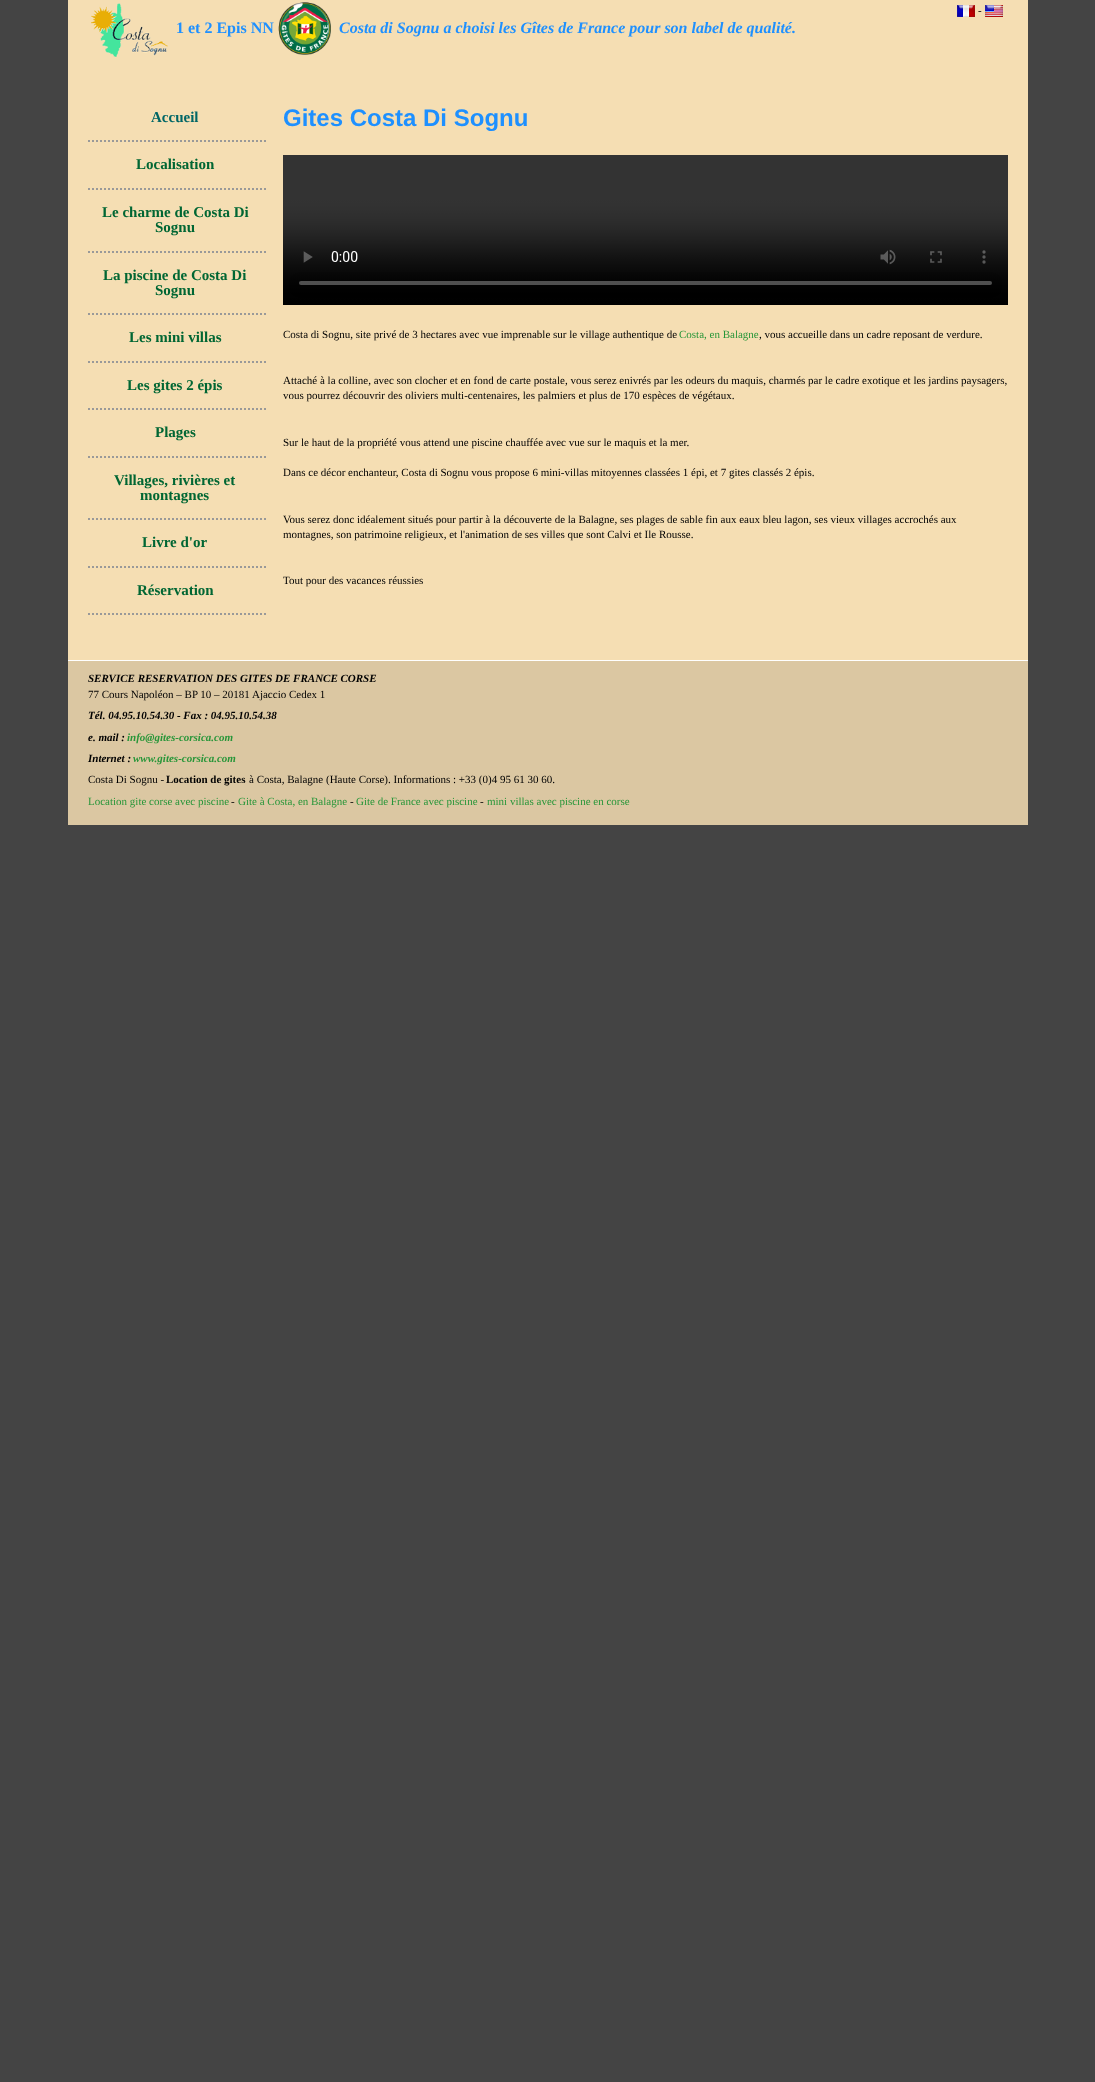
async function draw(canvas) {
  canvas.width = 1095;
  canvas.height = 2082;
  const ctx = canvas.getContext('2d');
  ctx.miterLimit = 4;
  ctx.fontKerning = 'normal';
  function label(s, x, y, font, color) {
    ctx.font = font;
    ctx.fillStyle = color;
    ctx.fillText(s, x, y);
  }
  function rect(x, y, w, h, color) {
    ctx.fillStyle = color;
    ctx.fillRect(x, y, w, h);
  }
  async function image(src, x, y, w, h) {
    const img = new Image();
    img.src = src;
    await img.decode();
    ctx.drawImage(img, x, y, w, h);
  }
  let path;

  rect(0, 0, 1095, 2082, '#444');
  rect(68, 0, 960, 660, '#f5deb3');
  await image('assets/img1.png', 91, 3, 77, 55);
  await image('assets/img2.png', 278, 2, 53, 53);
  await image('assets/img3.png', 957, 5, 18, 12);
  label('-', 978, 14, '11px Liberation Serif', '#000');
  await image('assets/img4.png', 985, 5, 18, 12);
  label('1 et 2 Epis NN', 176, 33, 'bold 16px Liberation Serif', '#1e90ff');
  label('Costa di Sognu a choisi les Gîtes de France pour son label de qualité.', 339, 33, 'italic bold 16px Liberation Serif', '#1e90ff');
  path = new Path2D('M88 141H268');
  ctx.strokeStyle = '#999';
  ctx.lineWidth = 2;
  ctx.setLineDash([2, 2]);
  ctx.stroke(path);
  label('Accueil', 151, 122, 'bold 15px Liberation Serif', '#066');
  path = new Path2D('M88 189H268');
  ctx.stroke(path);
  label('Localisation', 136, 169, 'bold 15px Liberation Serif', '#063');
  path = new Path2D('M88 252H268');
  ctx.stroke(path);
  label('Le charme de Costa Di', 102, 217, 'bold 15px Liberation Serif', '#063');
  label('Sognu', 155, 232, 'bold 15px Liberation Serif', '#063');
  path = new Path2D('M88 314H268');
  ctx.stroke(path);
  label('La piscine de Costa Di', 103, 280, 'bold 15px Liberation Serif', '#063');
  label('Sognu', 155, 295, 'bold 15px Liberation Serif', '#063');
  path = new Path2D('M88 362H268');
  ctx.stroke(path);
  label('Les mini villas', 129, 342, 'bold 15px Liberation Serif', '#063');
  path = new Path2D('M88 409H268');
  ctx.stroke(path);
  label('Les gites 2 épis', 127, 390, 'bold 15px Liberation Serif', '#063');
  path = new Path2D('M88 457H268');
  ctx.stroke(path);
  label('Plages', 155, 437, 'bold 15px Liberation Serif', '#063');
  path = new Path2D('M88 519H268');
  ctx.stroke(path);
  label('Villages, rivières et', 114, 485, 'bold 15px Liberation Serif', '#063');
  label('montagnes', 140, 500, 'bold 15px Liberation Serif', '#063');
  path = new Path2D('M88 567H268');
  ctx.stroke(path);
  label('Livre d\'or', 142, 547, 'bold 15px Liberation Serif', '#063');
  path = new Path2D('M88 614H268');
  ctx.stroke(path);
  label('Réservation', 137, 595, 'bold 15px Liberation Serif', '#063');
  label('Gites Costa Di Sognu', 283, 126, 'bold 24px Liberation Sans', '#1e90ff');
  await image('assets/img5.png', 283, 155, 725, 150);
  label('Costa di Sognu, site privé de 3 hectares avec vue imprenable sur le village authentique de', 283, 338, '11px Liberation Serif', '#000');
  label('Costa, en Balagne', 679, 338, '11px Liberation Serif', '#289639');
  label(', vous accueille dans un cadre reposant de verdure.', 759, 338, '11px Liberation Serif', '#000');
  label('Attaché à la colline, avec son clocher et en fond de carte postale, vous serez enivrés par les odeurs du maquis, charmés par le cadre exotique et les jardins paysagers,', 283, 384, '11px Liberation Serif', '#000');
  label('vous pourrez découvrir des oliviers multi-centenaires, les palmiers et plus de 170 espèces de végétaux.', 283, 399, '11px Liberation Serif', '#000');
  label('Sur le haut de la propriété vous attend une piscine chauffée avec vue sur le maquis et la mer.', 283, 446, '11px Liberation Serif', '#000');
  label('Dans ce décor enchanteur, Costa di Sognu vous propose 6 mini-villas mitoyennes classées 1 épi, et 7 gites classés 2 épis.', 283, 476, '11px Liberation Serif', '#000');
  label('Vous serez donc idéalement situés pour partir à la découverte de la Balagne, ses plages de sable fin aux eaux bleu lagon, ses vieux villages accrochés aux', 283, 523, '11px Liberation Serif', '#000');
  label('montagnes, son patrimoine religieux, et l\'animation de ses villes que sont Calvi et Ile Rousse.', 283, 538, '11px Liberation Serif', '#000');
  label('Tout pour des vacances réussies', 283, 584, '11px Liberation Serif', '#000');
  rect(68, 661, 960, 164, '#dbc7a2');
  rect(68, 660, 960, 1, '#fff');
  label('SERVICE RESERVATION DES GITES DE FRANCE CORSE', 88, 682, 'italic bold 11px Liberation Serif', '#000');
  label('77 Cours Napoléon – BP 10 – 20181 Ajaccio Cedex 1', 88, 698, '11px Liberation Serif', '#000');
  label('Tél. 04.95.10.54.30 - Fax : 04.95.10.54.38', 88, 719, 'italic bold 11px Liberation Serif', '#000');
  label('e. mail :', 88, 741, 'italic bold 11px Liberation Serif', '#000');
  label('info@gites-corsica.com', 127, 741, 'italic bold 11px Liberation Serif', '#289639');
  label('Internet :', 88, 762, 'italic bold 11px Liberation Serif', '#000');
  label('www.gites-corsica.com', 133, 762, 'italic bold 11px Liberation Serif', '#289639');
  label('Costa Di Sognu -', 88, 783, '11px Liberation Serif', '#000');
  label('Location de gites', 166, 783, 'bold 11px Liberation Serif', '#000');
  label('à Costa, Balagne (Haute Corse). Informations : +33 (0)4 95 61 30 60.', 249, 783, '11px Liberation Serif', '#000');
  label('Location gite corse avec piscine', 88, 805, '11px Liberation Serif', '#289639');
  label('-', 231, 805, '11px Liberation Serif', '#000');
  label('Gite à Costa, en Balagne', 238, 805, '11px Liberation Serif', '#289639');
  label('-', 350, 805, '11px Liberation Serif', '#000');
  label('Gite de France avec piscine', 356, 805, '11px Liberation Serif', '#289639');
  label('-', 480, 805, '11px Liberation Serif', '#000');
  label('mini villas avec piscine en corse', 487, 805, '11px Liberation Serif', '#289639');
}

draw(document.querySelector('canvas'));
